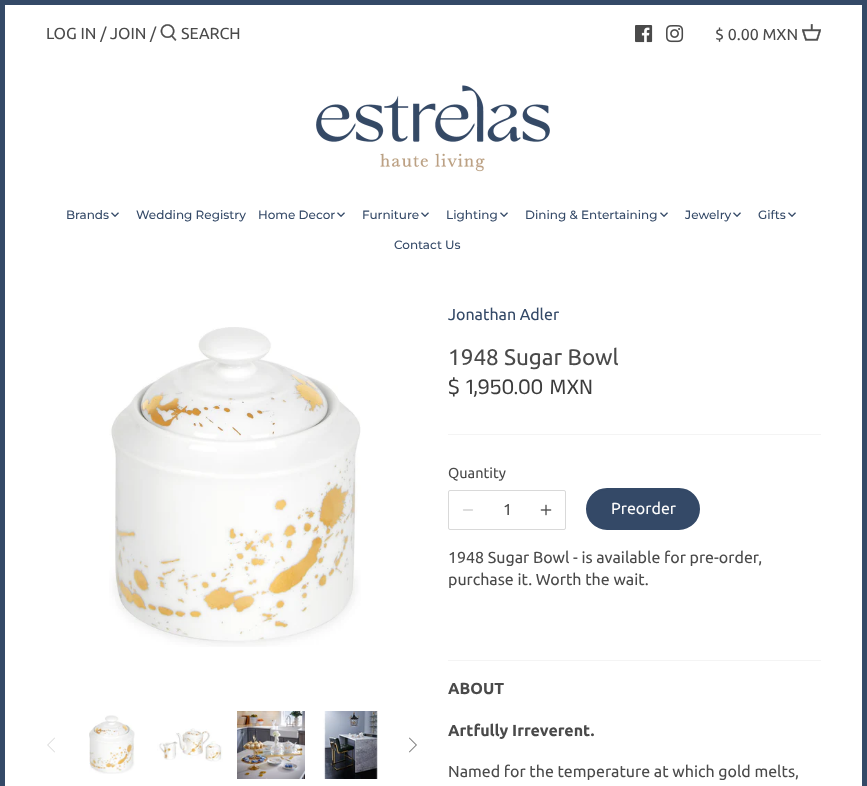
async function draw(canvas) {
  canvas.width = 867;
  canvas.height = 786;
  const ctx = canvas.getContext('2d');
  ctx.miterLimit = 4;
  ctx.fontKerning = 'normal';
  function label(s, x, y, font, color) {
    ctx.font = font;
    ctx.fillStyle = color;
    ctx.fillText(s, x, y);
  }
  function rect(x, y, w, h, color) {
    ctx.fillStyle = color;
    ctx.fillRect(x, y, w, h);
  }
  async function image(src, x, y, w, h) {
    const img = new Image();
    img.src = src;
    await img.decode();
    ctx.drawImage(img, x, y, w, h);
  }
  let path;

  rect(0, 0, 867, 786, '#fff');
  ctx.strokeStyle = '#344967';
  ctx.lineWidth = 5;
  ctx.strokeRect(2.5, 2.5, 862, 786);
  label('LOG IN / JOIN /', 46, 39, '16px Ubuntu', '#4a4a4a');
  await image('assets/img1.png', 160, 24, 17, 17);
  label('SEARCH', 181, 39, '16px Ubuntu', '#4a4a4a');
  await image('assets/img2.png', 635, 25, 18, 18);
  await image('assets/img3.png', 666, 25, 18, 18);
  label('$ 0.00 MXN', 715, 40, '16px Ubuntu', '#4a4a4a');
  await image('assets/img4.png', 802, 24, 19, 17);
  await image('assets/img5.png', 316, 85, 234, 87);
  label('Brands', 66, 219, '500 12px Montserrat', '#344967');
  await image('assets/img6.png', 111, 212, 8, 5);
  label('Wedding Registry', 136, 219, '500 12px Montserrat', '#344967');
  label('Home Decor', 258, 219, '500 12px Montserrat', '#344967');
  await image('assets/img6.png', 337, 212, 8, 5);
  label('Furniture', 362, 219, '500 12px Montserrat', '#344967');
  await image('assets/img6.png', 421, 212, 8, 5);
  label('Lighting', 446, 219, '500 12px Montserrat', '#344967');
  await image('assets/img6.png', 500, 212, 8, 5);
  label('Dining & Entertaining', 525, 219, '500 12px Montserrat', '#344967');
  await image('assets/img6.png', 660, 212, 8, 5);
  label('Jewelry', 685, 219, '500 12px Montserrat', '#344967');
  await image('assets/img6.png', 733, 212, 8, 5);
  label('Gifts', 758, 219, '500 12px Montserrat', '#344967');
  await image('assets/img6.png', 788, 212, 8, 5);
  label('Contact Us', 394, 249, '500 12px Montserrat', '#344967');
  await image('assets/img7.png', 109, 327, 252, 320);
  await image('assets/img8.png', 47, 737, 8, 16);
  await image('assets/img9.png', 89, 715, 46, 59);
  await image('assets/img10.png', 157, 728, 66, 34);
  await image('assets/img11.png', 237, 711, 68, 68);
  await image('assets/img12.png', 323, 711, 55, 68);
  await image('assets/img13.png', 409, 737, 8, 16);
  rect(448, 434, 373, 1, '#f4f4f4');
  label('Jonathan Adler', 448, 320, '16px Ubuntu', '#344967');
  label('1948 Sugar Bowl', 448, 365, '22.5px Ubuntu', '#4a4a4a');
  label('$ 1,950.00 MXN', 448, 394, '22.5px Anek Tamil', '#3c3c3c');
  rect(448, 660, 373, 1, '#f4f4f4');
  label('Quantity', 448, 478, '14.5px Ubuntu', '#4a4a4a');
  ctx.beginPath();
  ctx.roundRect(448.5, 490.5, 117, 39, 1.5);
  ctx.strokeStyle = '#d9d9d9';
  ctx.lineWidth = 1;
  ctx.stroke();
  path = new Path2D('M463.5 510H472.5');
  ctx.strokeStyle = '#d2d2d2';
  ctx.lineWidth = 1.3;
  ctx.lineCap = 'round';
  ctx.lineJoin = 'round';
  ctx.stroke(path);
  label('1', 503, 515, '16px Ubuntu', '#4a4a4a');
  await image('assets/img14.png', 540, 504, 12, 12);
  ctx.fillStyle = '#344967';
  ctx.beginPath();
  ctx.roundRect(587, 489, 112, 40, 20);
  ctx.fill();
  ctx.strokeStyle = '#344967';
  ctx.lineWidth = 2;
  ctx.lineJoin = 'miter';
  ctx.stroke();
  label('Preorder', 611, 514, '16px Ubuntu', '#fcfcfc');
  label('1948 Sugar Bowl - is available for pre-order,', 448, 563, '16px Ubuntu', '#4a4a4a');
  label('purchase it. Worth the wait.', 448, 585, '16px Ubuntu', '#4a4a4a');
  label('ABOUT', 448, 694, 'bold 16px Ubuntu', '#4a4a4a');
  label('Artfully Irreverent.', 448, 736, 'bold 16px Ubuntu', '#4a4a4a');
  label('Named for the temperature at which gold melts,', 448, 777, '16px Ubuntu', '#4a4a4a');
}

draw(document.querySelector('canvas'));
